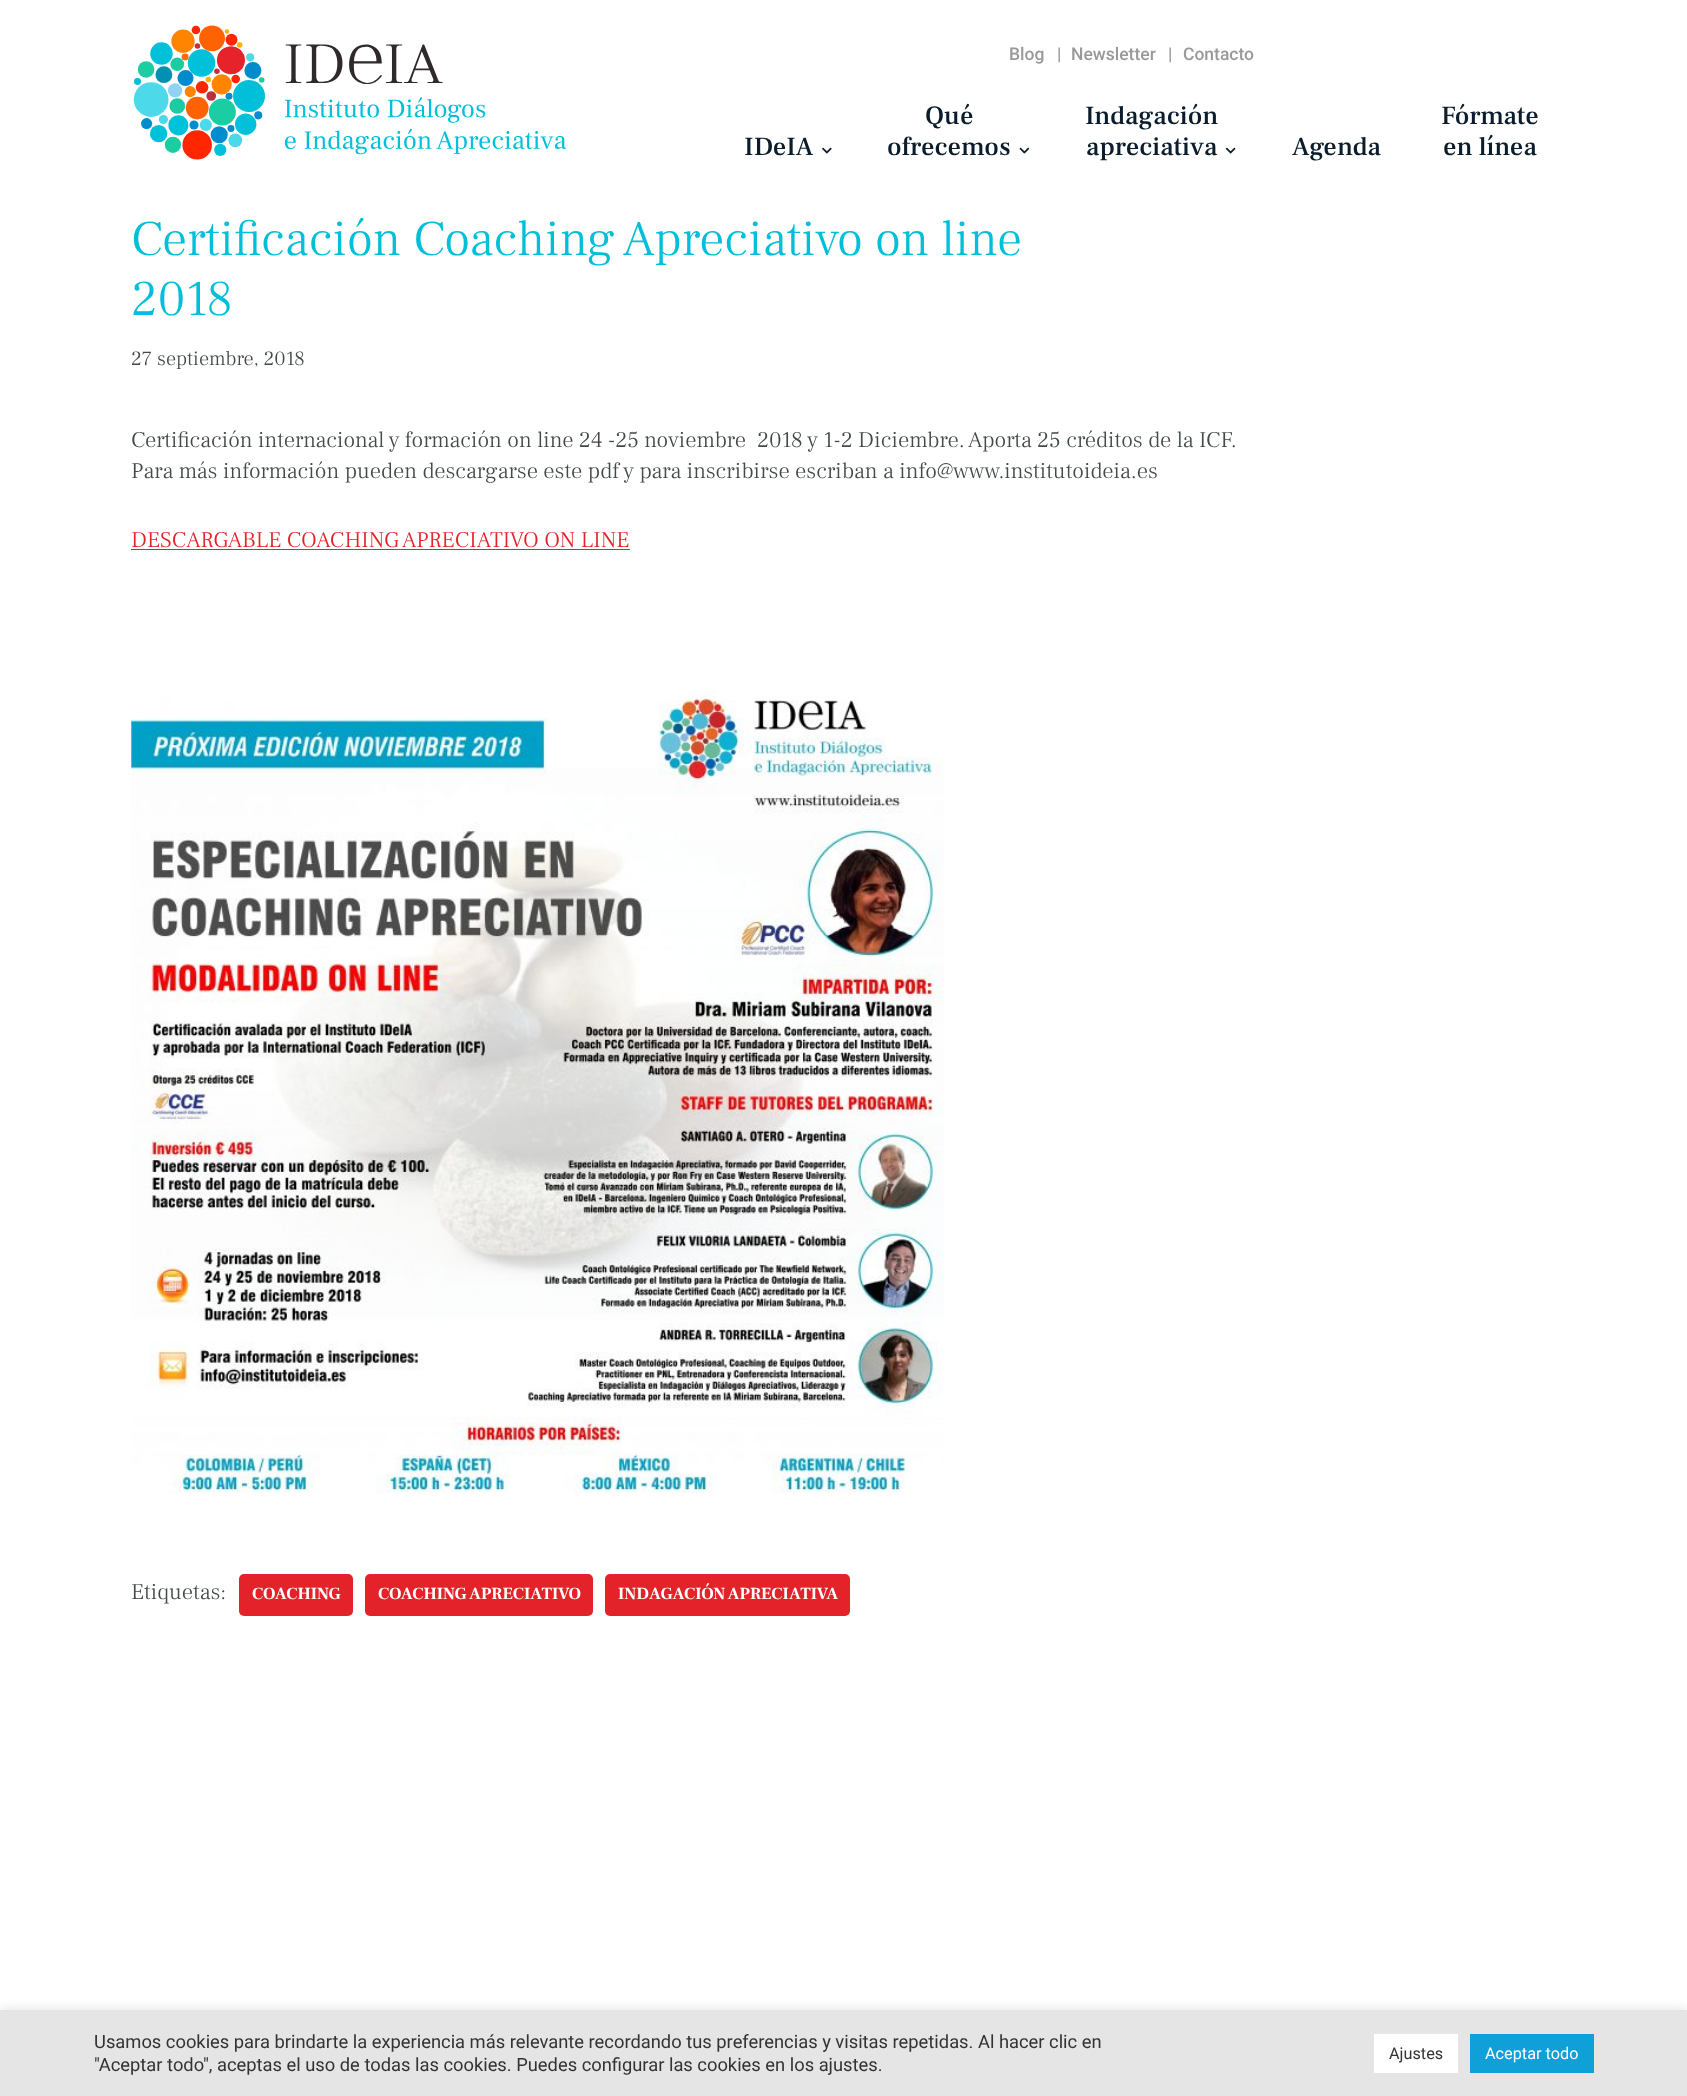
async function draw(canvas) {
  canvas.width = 1687;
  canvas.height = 2096;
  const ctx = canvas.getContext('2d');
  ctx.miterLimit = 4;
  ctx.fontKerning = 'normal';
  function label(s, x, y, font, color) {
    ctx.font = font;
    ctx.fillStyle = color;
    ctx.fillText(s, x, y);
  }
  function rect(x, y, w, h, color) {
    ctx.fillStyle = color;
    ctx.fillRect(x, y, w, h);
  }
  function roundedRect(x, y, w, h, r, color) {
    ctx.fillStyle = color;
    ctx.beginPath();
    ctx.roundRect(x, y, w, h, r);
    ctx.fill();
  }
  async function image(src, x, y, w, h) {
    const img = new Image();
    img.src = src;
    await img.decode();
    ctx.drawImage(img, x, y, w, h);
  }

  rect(0, 0, 1687, 2096, '#fff');
  await image('assets/img1.png', 133, 25, 433, 135);
  label('Blog', 1009, 60, '500 17.5px Roboto', '#999');
  label('|', 1057, 60, '500 17.5px Roboto', '#999');
  label('Newsletter', 1071, 60, '500 17.5px Roboto', '#999');
  label('|', 1168, 60, '500 17.5px Roboto', '#999');
  label('Contacto', 1183, 60, '500 17.5px Roboto', '#999');
  label('IDeIA', 744, 155, '500 26.25px Frank Ruhl Libre', '#0b1d2c');
  await image('assets/img2.png', 822, 147, 10, 7);
  label('Qué', 925, 124, '500 26.25px Frank Ruhl Libre', '#0b1d2c');
  label('ofrecemos', 887, 155, '500 26.25px Frank Ruhl Libre', '#0b1d2c');
  await image('assets/img3.png', 1019, 147, 11, 7);
  label('Indagación', 1085, 124, '500 26.25px Frank Ruhl Libre', '#0b1d2c');
  label('apreciativa', 1086, 155, '500 26.25px Frank Ruhl Libre', '#0b1d2c');
  await image('assets/img4.png', 1225, 147, 11, 7);
  label('Agenda', 1292, 155, '500 26.25px Frank Ruhl Libre', '#0b1d2c');
  label('Fórmate', 1441, 124, '500 26.25px Frank Ruhl Libre', '#0b1d2c');
  label('en línea', 1443, 155, '500 26.25px Frank Ruhl Libre', '#0b1d2c');
  label('Certificación Coaching Apreciativo on line', 131, 255, '300 50px Frank Ruhl Libre', '#00bfd8');
  label('2018', 131, 315, '300 50px Frank Ruhl Libre', '#00bfd8');
  label('27 septiembre, 2018', 131, 365, '300 20.25px Frank Ruhl Libre', '#434849');
  label('Certificación internacional y formación on line 24 -25 noviembre  2018 y 1-2 Diciembre. Aporta 25 créditos de la ICF.', 131, 447, '300 22.5px Frank Ruhl Libre', '#434849');
  label('Para más información pueden descargarse este pdf y para inscribirse escriban a info@www.institutoideia.es', 131, 478, '300 22.5px Frank Ruhl Libre', '#434849');
  label('DESCARGABLE COACHING APRECIATIVO ON LINE', 131, 547, '300 22.5px Frank Ruhl Libre', '#e3222a');
  rect(131, 549, 499, 1, '#e3222a');
  await image('assets/img5.png', 131, 682, 813, 812);
  label('Etiquetas:', 131, 1599, '300 22.5px Frank Ruhl Libre', '#434849');
  roundedRect(239, 1574, 114, 42, 5, '#e3222a');
  label('COACHING', 252, 1599, 'bold 16.9px Frank Ruhl Libre', '#fff');
  roundedRect(365, 1574, 228, 42, 5, '#e3222a');
  label('COACHING APRECIATIVO', 378, 1599, 'bold 16.9px Frank Ruhl Libre', '#fff');
  roundedRect(605, 1574, 245, 42, 5, '#e3222a');
  label('INDAGACIÓN APRECIATIVA', 618, 1599, 'bold 16.9px Frank Ruhl Libre', '#fff');
  ctx.fillStyle = '#acabab4d';
  ctx.filter = 'blur(6px)';
  ctx.beginPath();
  ctx.rect(0, 2009, 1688, 86);
  ctx.fill();
  ctx.filter = 'none';
  rect(0, 2010, 1687, 86, '#e5e5e5');
  label('Usamos cookies para brindarte la experiencia más relevante recordando tus preferencias y visitas repetidas. Al hacer clic en', 94, 2048, '18.33px Roboto', '#333');
  label('"Aceptar todo", aceptas el uso de todas las cookies. Puedes configurar las cookies en los ajustes.', 94, 2071, '18.33px Roboto', '#333');
  rect(1374, 2034, 84, 39, '#fff');
  label('Ajustes', 1389, 2059, '16.25px Roboto', '#333');
  rect(1470, 2034, 124, 39, '#0ea0d7');
  label('Aceptar todo', 1485, 2059, '16.25px Roboto', '#fff');
}

draw(document.querySelector('canvas'));
